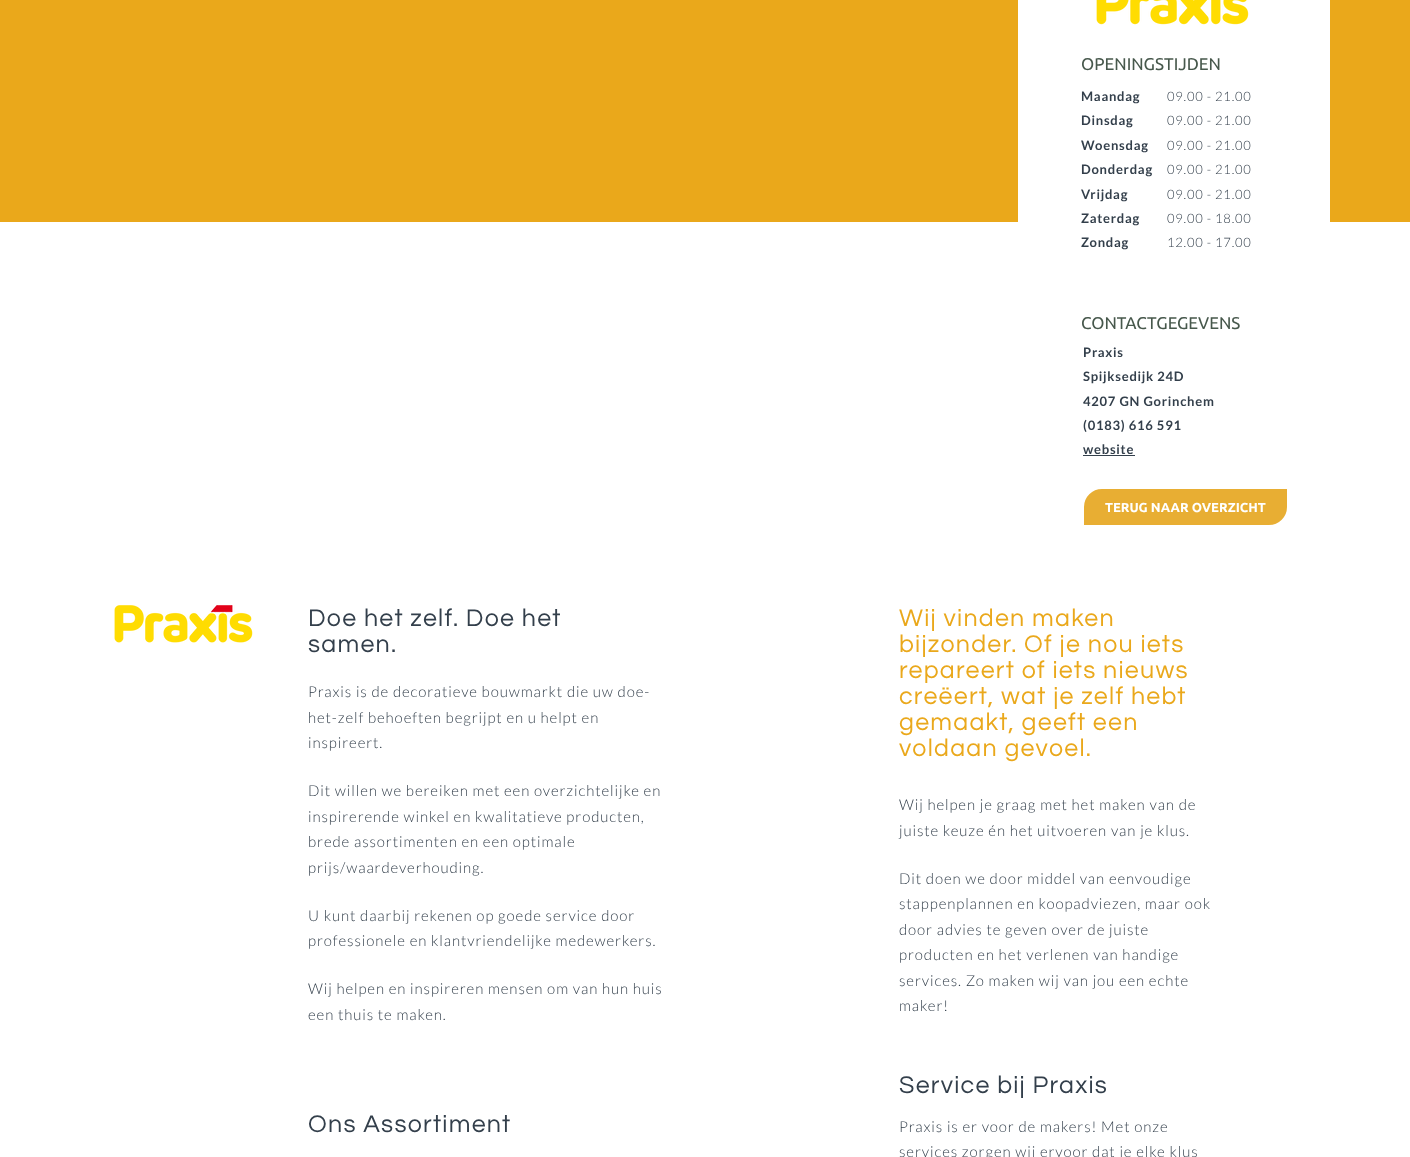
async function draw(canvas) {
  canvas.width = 1410;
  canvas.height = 1157;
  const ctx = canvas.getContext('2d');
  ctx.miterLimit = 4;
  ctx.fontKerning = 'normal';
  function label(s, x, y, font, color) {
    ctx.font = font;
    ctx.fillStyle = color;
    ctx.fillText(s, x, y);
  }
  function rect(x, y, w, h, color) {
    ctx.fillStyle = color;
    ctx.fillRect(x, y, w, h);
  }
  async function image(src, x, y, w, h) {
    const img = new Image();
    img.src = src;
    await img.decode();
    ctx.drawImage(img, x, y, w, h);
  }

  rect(0, 0, 1410, 1157, '#fff');
  rect(0, 0, 1410, 222, '#eaa81b');
  rect(1018, 0, 312, 222, '#fff');
  await image('assets/img1.png', 1096, 0, 153, 25);
  label('OPENINGSTIJDEN', 1081, 70, '17px Ubuntu', '#47584c');
  ctx.letterSpacing = '0.75px';
  label('Maandag', 1081, 101, 'bold 13px Lato', '#333f4b');
  label('Dinsdag', 1081, 125, 'bold 13px Lato', '#333f4b');
  label('Woensdag', 1081, 150, 'bold 13px Lato', '#333f4b');
  label('Donderdag', 1081, 174, 'bold 13px Lato', '#333f4b');
  label('Vrijdag', 1081, 199, 'bold 13px Lato', '#333f4b');
  label('Zaterdag', 1081, 223, 'bold 13px Lato', '#333f4b');
  label('Zondag', 1081, 247, 'bold 13px Lato', '#333f4b');
  label('09.00 - 21.00', 1167, 101, '300 13px Lato', '#333f4b');
  label('09.00 - 21.00', 1167, 125, '300 13px Lato', '#333f4b');
  label('09.00 - 21.00', 1167, 150, '300 13px Lato', '#333f4b');
  label('09.00 - 21.00', 1167, 174, '300 13px Lato', '#333f4b');
  label('09.00 - 21.00', 1167, 199, '300 13px Lato', '#333f4b');
  label('09.00 - 18.00', 1167, 223, '300 13px Lato', '#333f4b');
  label('12.00 - 17.00', 1167, 247, '300 13px Lato', '#333f4b');
  ctx.letterSpacing = '0px';
  label('CONTACTGEGEVENS', 1081, 329, '17px Ubuntu', '#47584c');
  ctx.letterSpacing = '0.75px';
  label('Praxis', 1083, 357, 'bold 13px Lato', '#333f4b');
  label('Spijksedijk 24D', 1083, 381, 'bold 13px Lato', '#333f4b');
  label('4207 GN Gorinchem', 1083, 406, 'bold 13px Lato', '#333f4b');
  label('(0183) 616 591', 1083, 430, 'bold 13px Lato', '#333f4b');
  label('website', 1083, 454, 'bold 13px Lato', '#333f4b');
  rect(1083, 455, 52, 1, '#333f4b');
  ctx.fillStyle = '#e8ae33';
  ctx.beginPath();
  ctx.roundRect(1083, 488, 205, 38, [19, 0, 19, 0]);
  ctx.fill();
  ctx.strokeStyle = '#fff';
  ctx.lineWidth = 2;
  ctx.stroke();
  ctx.letterSpacing = '0px';
  label('TERUG NAAR OVERZICHT', 1105, 512, 'bold 13px Ubuntu', '#fff');
  await image('assets/img2.png', 114, 605, 139, 38);
  ctx.letterSpacing = '1.25px';
  label('Doe het zelf. Doe het', 308, 626, '25px Questrial', '#333f4b');
  label('samen.', 308, 652, '25px Questrial', '#333f4b');
  ctx.letterSpacing = '0.9px';
  label('Praxis is de decoratieve bouwmarkt die uw doe-', 308, 697, '300 15px Lato', '#333f4b');
  label('het-zelf behoeften begrijpt en u helpt en', 308, 723, '300 15px Lato', '#333f4b');
  label('inspireert.', 308, 748, '300 15px Lato', '#333f4b');
  label('Dit willen we bereiken met een overzichtelijke en', 308, 796, '300 15px Lato', '#333f4b');
  label('inspirerende winkel en kwalitatieve producten,', 308, 822, '300 15px Lato', '#333f4b');
  label('brede assortimenten en een optimale', 308, 847, '300 15px Lato', '#333f4b');
  label('prijs/waardeverhouding.', 308, 873, '300 15px Lato', '#333f4b');
  label('U kunt daarbij rekenen op goede service door', 308, 921, '300 15px Lato', '#333f4b');
  label('professionele en klantvriendelijke medewerkers.', 308, 946, '300 15px Lato', '#333f4b');
  label('Wij helpen en inspireren mensen om van hun huis', 308, 994, '300 15px Lato', '#333f4b');
  label('een thuis te maken.', 308, 1020, '300 15px Lato', '#333f4b');
  ctx.letterSpacing = '1.25px';
  label('Ons Assortiment', 308, 1132, '25px Questrial', '#333f4b');
  label('Wij vinden maken', 899, 626, '25px Questrial', '#eaa81b');
  label('bijzonder. Of je nou iets', 899, 652, '25px Questrial', '#eaa81b');
  label('repareert of iets nieuws', 899, 678, '25px Questrial', '#eaa81b');
  label('creëert, wat je zelf hebt', 899, 704, '25px Questrial', '#eaa81b');
  label('gemaakt, geeft een', 899, 730, '25px Questrial', '#eaa81b');
  label('voldaan gevoel.', 899, 756, '25px Questrial', '#eaa81b');
  ctx.letterSpacing = '0.9px';
  label('Wij helpen je graag met het maken van de', 899, 810, '300 15px Lato', '#333f4b');
  label('juiste keuze én het uitvoeren van je klus.', 899, 836, '300 15px Lato', '#333f4b');
  label('Dit doen we door middel van eenvoudige', 899, 884, '300 15px Lato', '#333f4b');
  label('stappenplannen en koopadviezen, maar ook', 899, 909, '300 15px Lato', '#333f4b');
  label('door advies te geven over de juiste', 899, 935, '300 15px Lato', '#333f4b');
  label('producten en het verlenen van handige', 899, 960, '300 15px Lato', '#333f4b');
  label('services. Zo maken wij van jou een echte', 899, 986, '300 15px Lato', '#333f4b');
  label('maker!', 899, 1011, '300 15px Lato', '#333f4b');
  ctx.letterSpacing = '1.25px';
  label('Service bij Praxis', 899, 1093, '25px Questrial', '#333f4b');
  ctx.letterSpacing = '0.9px';
  label('Praxis is er voor de makers! Met onze', 899, 1132, '300 15px Lato', '#333f4b');
  label('services zorgen wij ervoor dat je elke klus', 899, 1157, '300 15px Lato', '#333f4b');
}

draw(document.querySelector('canvas'));
